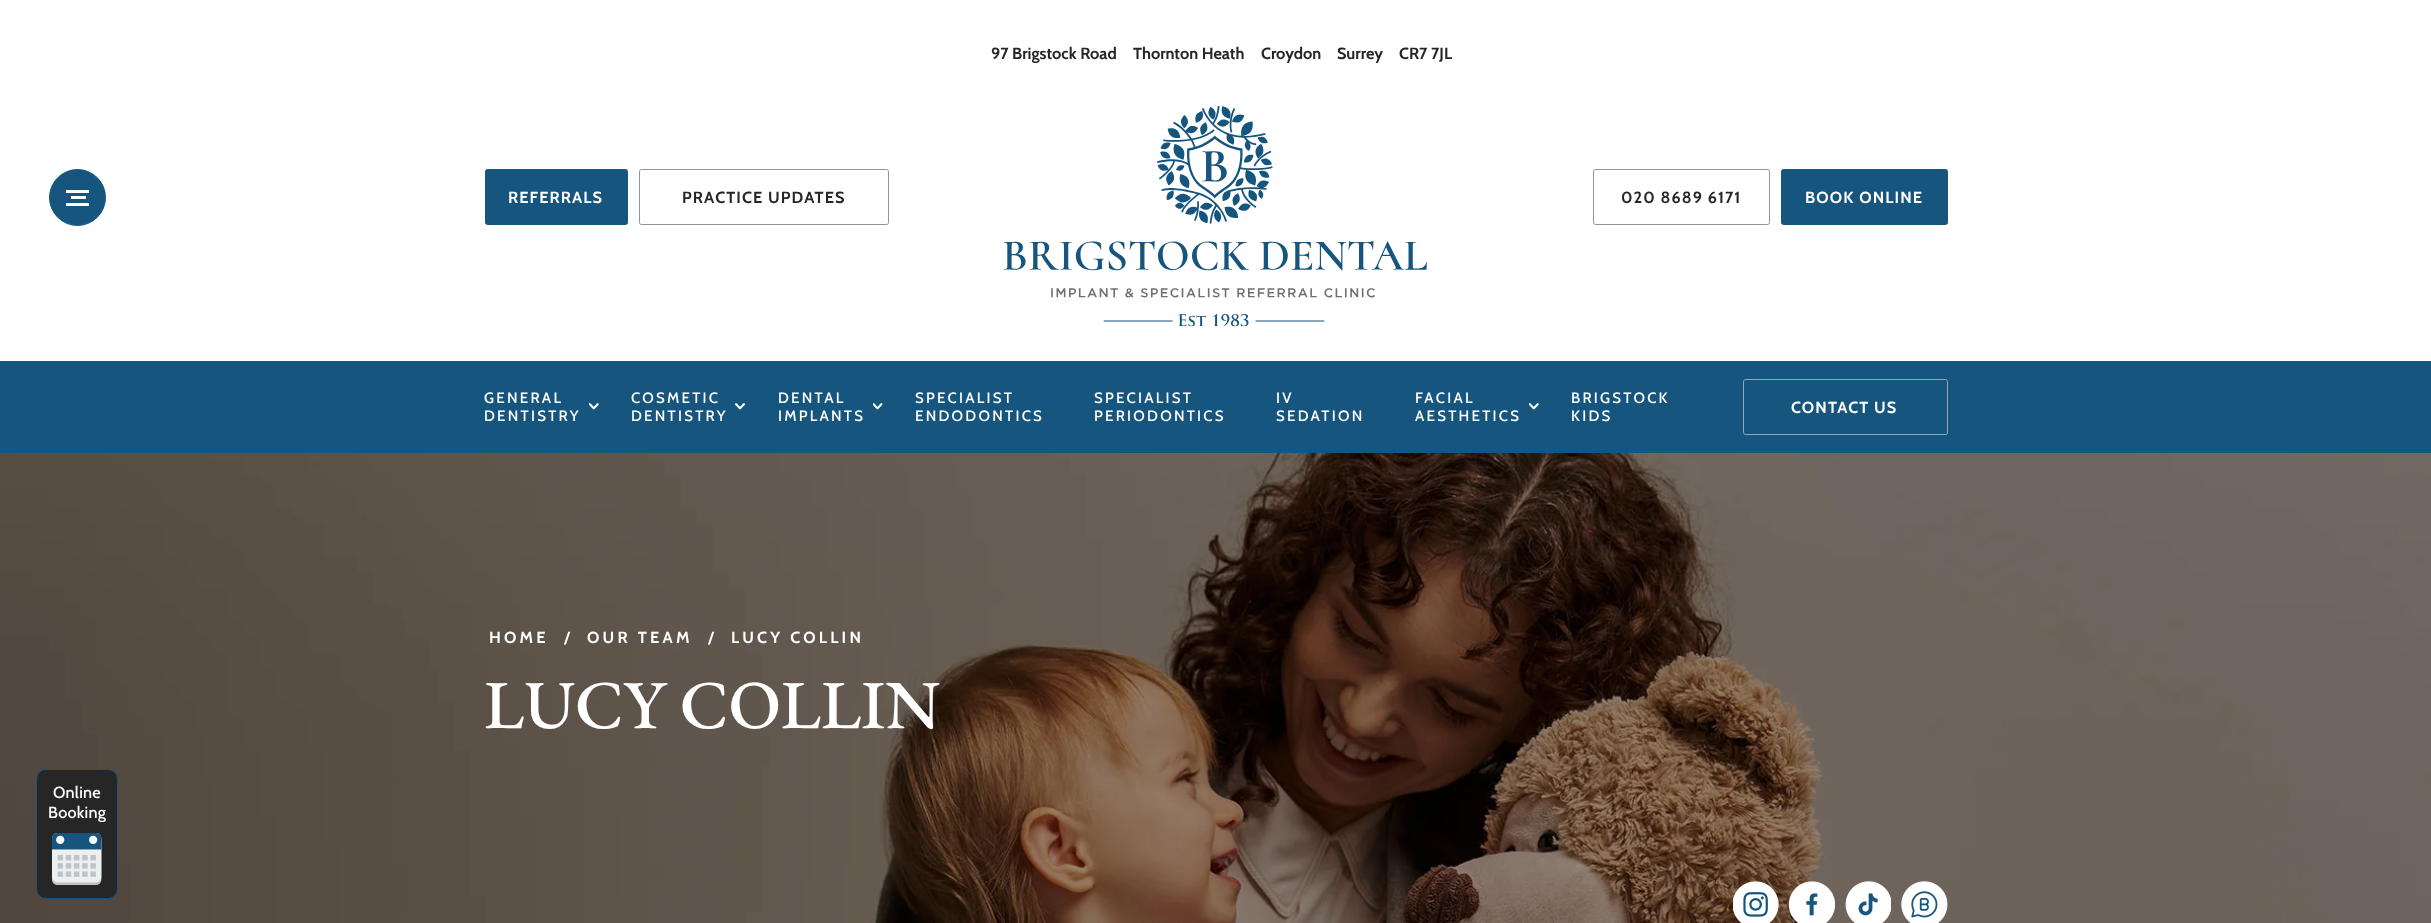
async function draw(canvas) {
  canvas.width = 2431;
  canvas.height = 923;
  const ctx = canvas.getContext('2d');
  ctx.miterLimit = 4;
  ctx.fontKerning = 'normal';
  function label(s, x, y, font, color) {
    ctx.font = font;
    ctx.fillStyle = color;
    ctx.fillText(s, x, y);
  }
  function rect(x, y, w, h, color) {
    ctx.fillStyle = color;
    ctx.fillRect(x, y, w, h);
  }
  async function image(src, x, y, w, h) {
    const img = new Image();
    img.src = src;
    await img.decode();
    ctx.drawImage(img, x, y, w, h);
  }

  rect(0, 0, 2431, 923, '#fff');
  ctx.fillStyle = '#16557e';
  ctx.beginPath();
  ctx.arc(77.5, 197.5, 28, 0, 2 * Math.PI);
  ctx.fill();
  ctx.strokeStyle = '#16557e';
  ctx.stroke();
  rect(66, 190, 23, 3, '#fff');
  rect(71, 196, 15, 3, '#fff');
  rect(66, 203, 23, 3, '#fff');
  label('97 Brigstock Road', 991, 59, 'bold 16.25px Cabin', '#262626');
  label('Thornton Heath', 1133, 59, 'bold 16.25px Cabin', '#262626');
  label('Croydon', 1261, 59, 'bold 16.25px Cabin', '#262626');
  label('Surrey', 1337, 59, 'bold 16.25px Cabin', '#262626');
  label('CR7 7JL', 1399, 59, 'bold 16.25px Cabin', '#262626');
  ctx.fillStyle = '#16557e';
  ctx.beginPath();
  ctx.roundRect(485.5, 169.5, 142, 55, 2);
  ctx.fill();
  ctx.stroke();
  ctx.letterSpacing = '1.1px';
  label('REFERRALS', 508, 203, 'bold 16.25px Cabin', '#fff');
  ctx.beginPath();
  ctx.roundRect(639.5, 169.5, 249, 55, 2);
  ctx.strokeStyle = '#939393';
  ctx.stroke();
  label('PRACTICE UPDATES', 682, 203, 'bold 16.25px Cabin', '#262626');
  await image('assets/img1.png', 1004, 106, 423, 221);
  ctx.beginPath();
  ctx.roundRect(1593.5, 169.5, 176, 55, 2);
  ctx.stroke();
  label('020 8689 6171', 1621, 203, 'bold 16.25px Cabin', '#262626');
  ctx.fillStyle = '#16557e';
  ctx.beginPath();
  ctx.roundRect(1781.5, 169.5, 166, 55, 2);
  ctx.fill();
  ctx.strokeStyle = '#16557e';
  ctx.stroke();
  label('BOOK ONLINE', 1805, 203, 'bold 16.25px Cabin', '#fff');
  rect(0, 361, 2431, 92, '#16557e');
  ctx.letterSpacing = '2.25px';
  label('GENERAL', 484, 403, '500 15px Cabin', '#fff');
  label('DENTISTRY', 484, 421, '500 15px Cabin', '#fff');
  await image('assets/img2.png', 589, 403, 10, 7);
  label('COSMETIC', 631, 403, '500 15px Cabin', '#fff');
  label('DENTISTRY', 631, 421, '500 15px Cabin', '#fff');
  await image('assets/img3.png', 735, 403, 10, 7);
  label('DENTAL', 778, 403, '500 15px Cabin', '#fff');
  label('IMPLANTS', 778, 421, '500 15px Cabin', '#fff');
  await image('assets/img4.png', 873, 403, 10, 7);
  label('SPECIALIST', 915, 403, '500 15px Cabin', '#fff');
  label('ENDODONTICS', 915, 421, '500 15px Cabin', '#fff');
  label('SPECIALIST', 1094, 403, '500 15px Cabin', '#fff');
  label('PERIODONTICS', 1094, 421, '500 15px Cabin', '#fff');
  label('IV', 1276, 403, '500 15px Cabin', '#fff');
  label('SEDATION', 1276, 421, '500 15px Cabin', '#fff');
  label('FACIAL', 1415, 403, '500 15px Cabin', '#fff');
  label('AESTHETICS', 1415, 421, '500 15px Cabin', '#fff');
  await image('assets/img2.png', 1529, 403, 10, 7);
  label('BRIGSTOCK', 1571, 403, '500 15px Cabin', '#fff');
  label('KIDS', 1571, 421, '500 15px Cabin', '#fff');
  ctx.beginPath();
  ctx.roundRect(1743.5, 379.5, 204, 55, 2);
  ctx.strokeStyle = '#8baabf';
  ctx.stroke();
  ctx.letterSpacing = '1.1px';
  label('CONTACT US', 1791, 413, 'bold 16.25px Cabin', '#fff');
  await image('assets/img5.png', 0, 453, 2431, 470);
  ctx.letterSpacing = '3.25px';
  label('HOME', 489, 643, 'bold 16.25px Cabin', '#fff');
  label('/', 564, 643, 'bold 16.25px Cabin', '#fff');
  label('OUR TEAM', 587, 643, 'bold 16.25px Cabin', '#fff');
  label('/', 708, 643, 'bold 16.25px Cabin', '#fff');
  label('LUCY COLLIN', 731, 643, 'bold 16.25px Cabin', '#fff');
  ctx.letterSpacing = '0px';
  label('LUCY COLLIN', 484, 728, '500 68.75px EB Garamond', '#fff');
  await image('assets/img6.png', 1733, 881, 46, 42);
  await image('assets/img7.png', 1789, 881, 46, 42);
  await image('assets/img8.png', 1845, 881, 46, 42);
  await image('assets/img9.png', 1901, 881, 47, 42);
  ctx.fillStyle = '#262626';
  ctx.beginPath();
  ctx.roundRect(36.5, 769.5, 81, 129, 9.5);
  ctx.fill();
  ctx.strokeStyle = '#16557e';
  ctx.stroke();
  ctx.letterSpacing = '0.25px';
  label('Online', 53, 798, '500 16.25px Cabin', '#fff');
  label('Booking', 48, 818, '500 16.25px Cabin', '#fff');
  await image('assets/img10.png', 52, 833, 50, 52);
}

draw(document.querySelector('canvas'));
